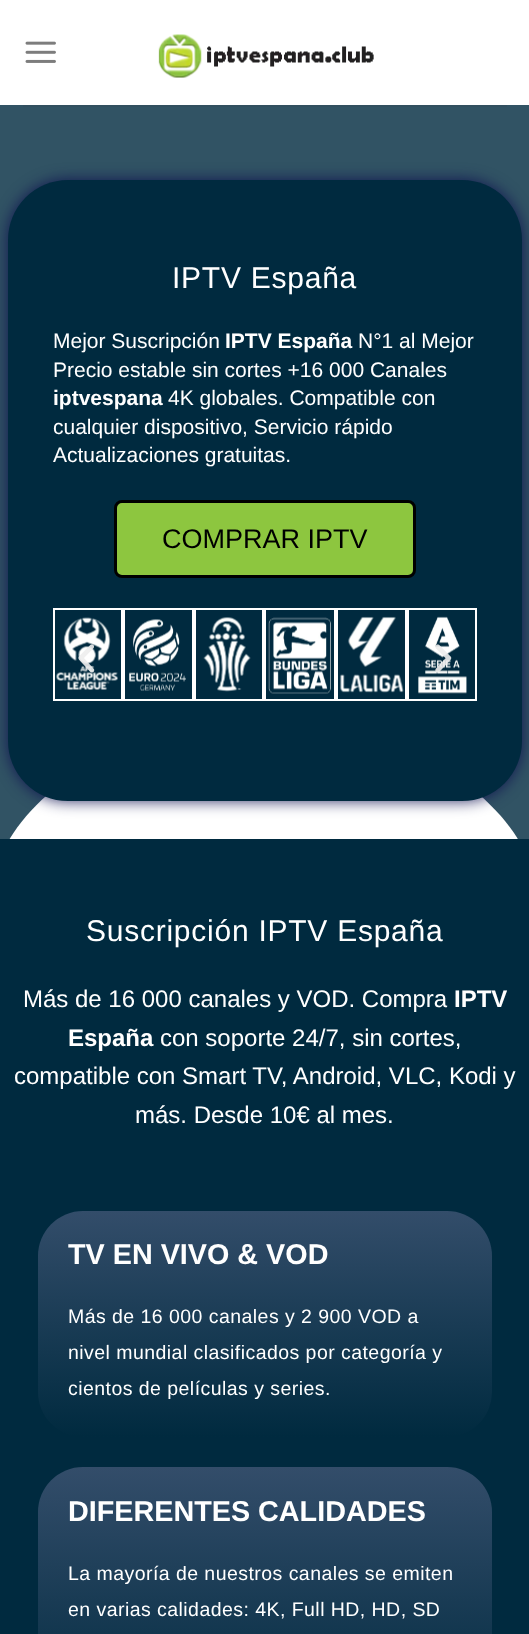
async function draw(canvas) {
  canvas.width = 529;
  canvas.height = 1634;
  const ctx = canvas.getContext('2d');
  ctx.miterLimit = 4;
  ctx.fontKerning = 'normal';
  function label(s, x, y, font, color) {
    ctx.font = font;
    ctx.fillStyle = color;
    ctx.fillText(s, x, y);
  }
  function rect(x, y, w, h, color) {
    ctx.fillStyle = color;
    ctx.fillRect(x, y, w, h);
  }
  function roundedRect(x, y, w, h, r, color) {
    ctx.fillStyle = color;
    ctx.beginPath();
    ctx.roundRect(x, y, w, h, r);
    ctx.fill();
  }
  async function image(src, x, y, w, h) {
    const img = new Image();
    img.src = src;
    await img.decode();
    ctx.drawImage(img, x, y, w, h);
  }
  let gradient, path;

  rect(0, 0, 529, 1634, '#fff');
  await image('assets/img1.png', 25, 41, 31, 22);
  await image('assets/img2.png', 158, 34, 216, 44);
  rect(0, 105, 529, 734, '#315364');
  rect(23, 105, 484, 2, '#314f5f');
  ctx.fillStyle = '#fff';
  path = new Path2D('M-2 870V876H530V870C529 842 462 727 264 726C66 725-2 842-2 870Z');
  ctx.fill(path);
  ctx.fillStyle = '#0d0f4ee0';
  ctx.filter = 'blur(7.5px)';
  ctx.beginPath();
  ctx.roundRect(8, 180, 514, 621, 60);
  ctx.fill();
  ctx.filter = 'none';
  roundedRect(8, 180, 514, 621, 60, '#002a3f');
  ctx.letterSpacing = '0.75px';
  label('IPTV España', 172, 288, '30px Liberation Sans', '#fff');
  ctx.letterSpacing = '0px';
  label('Mejor Suscripción', 53, 348, '21px Liberation Sans', '#fff');
  label('IPTV España', 225, 348, 'bold 21px Liberation Sans', '#fff');
  label('N°1 al Mejor', 358, 348, '21px Liberation Sans', '#fff');
  label('Precio estable sin cortes +16 000 Canales', 53, 377, '21px Liberation Sans', '#fff');
  label('iptvespana', 53, 405, 'bold 21px Liberation Sans', '#fff');
  label('4K globales. Compatible con', 168, 405, '21px Liberation Sans', '#fff');
  label('cualquier dispositivo, Servicio rápido', 53, 434, '21px Liberation Sans', '#fff');
  label('Actualizaciones gratuitas.', 53, 462, '21px Liberation Sans', '#fff');
  ctx.fillStyle = '#8dc63f';
  ctx.beginPath();
  ctx.roundRect(115.5, 501.5, 299, 75, 6.5);
  ctx.fill();
  ctx.strokeStyle = '#000';
  ctx.lineWidth = 3;
  ctx.stroke();
  label('COMPRAR IPTV', 162, 548, '27px Liberation Sans', '#000');
  ctx.strokeStyle = '#fff';
  ctx.lineWidth = 2;
  ctx.strokeRect(54, 609, 68, 91);
  await image('assets/img3.png', 56, 617, 62, 73);
  ctx.strokeRect(124, 609, 69, 91);
  await image('assets/img4.png', 129, 619, 57, 72);
  ctx.strokeRect(195, 609, 68, 91);
  await image('assets/img5.png', 203, 617, 48, 75);
  ctx.strokeRect(265, 609, 70, 91);
  await image('assets/img6.png', 268, 617, 63, 77);
  ctx.strokeRect(337, 609, 69, 91);
  await image('assets/img7.png', 340, 616, 64, 77);
  ctx.strokeRect(408, 609, 68, 91);
  await image('assets/img8.png', 418, 616, 49, 78);
  await image('assets/img9.png', 78, 644, 17, 29);
  await image('assets/img10.png', 435, 644, 17, 29);
  rect(0, 839, 529, 795, '#002a3f');
  ctx.letterSpacing = '0.75px';
  label('Suscripción IPTV España', 86, 941, '30px Liberation Sans', '#fff');
  ctx.letterSpacing = '0px';
  label('Más de 16 000 canales y VOD. Compra', 23, 1007, '24px Liberation Sans', '#fff');
  label('IPTV', 454, 1007, 'bold 24px Liberation Sans', '#fff');
  label('España', 68, 1046, 'bold 24px Liberation Sans', '#fff');
  label('con soporte 24/7, sin cortes,', 160, 1046, '24px Liberation Sans', '#fff');
  label('compatible con Smart TV, Android, VLC, Kodi y', 14, 1084, '24px Liberation Sans', '#fff');
  label('más. Desde 10€ al mes.', 135, 1123, '24px Liberation Sans', '#fff');
  gradient = ctx.createLinearGradient(265, 1437, 265, 1211);
  gradient.addColorStop(0, '#002a3f');
  gradient.addColorStop(1, '#334d6a');
  ctx.fillStyle = gradient;
  ctx.beginPath();
  ctx.roundRect(38, 1211, 454, 226, 45);
  ctx.fill();
  label('TV EN VIVO & VOD', 68, 1264, 'bold 28.75px Liberation Sans', '#fff');
  ctx.letterSpacing = '0.45px';
  label('Más de 16 000 canales y 2 900 VOD a', 68, 1323, '19.5px Liberation Sans', '#fff');
  label('nivel mundial clasificados por categoría y', 68, 1359, '19.5px Liberation Sans', '#fff');
  label('cientos de películas y series.', 68, 1395, '19.5px Liberation Sans', '#fff');
  gradient = ctx.createLinearGradient(265, 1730, 265, 1467);
  gradient.addColorStop(0, '#002a3f');
  gradient.addColorStop(1, '#334d6a');
  ctx.fillStyle = gradient;
  ctx.beginPath();
  ctx.roundRect(38, 1467, 454, 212, 45);
  ctx.fill();
  ctx.letterSpacing = '0px';
  label('DIFERENTES CALIDADES', 68, 1521, 'bold 28.75px Liberation Sans', '#fff');
  ctx.letterSpacing = '0.45px';
  label('La mayoría de nuestros canales se emiten', 68, 1580, '19.5px Liberation Sans', '#fff');
  label('en varias calidades: 4K, Full HD, HD, SD', 68, 1616, '19.5px Liberation Sans', '#fff');
}

draw(document.querySelector('canvas'));
